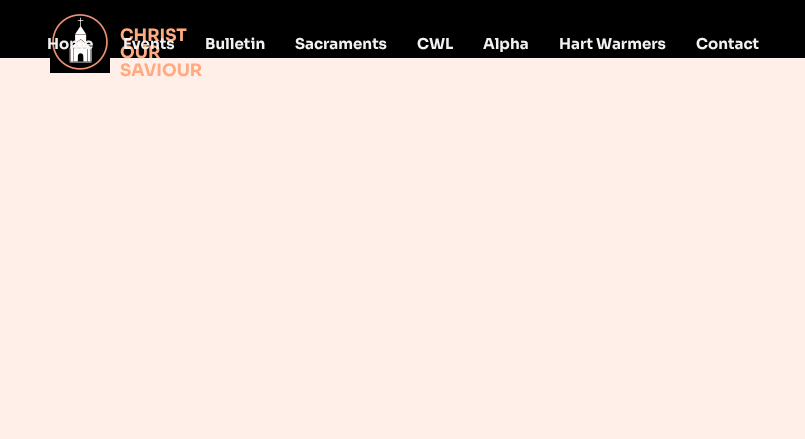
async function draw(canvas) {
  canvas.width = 805;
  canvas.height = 439;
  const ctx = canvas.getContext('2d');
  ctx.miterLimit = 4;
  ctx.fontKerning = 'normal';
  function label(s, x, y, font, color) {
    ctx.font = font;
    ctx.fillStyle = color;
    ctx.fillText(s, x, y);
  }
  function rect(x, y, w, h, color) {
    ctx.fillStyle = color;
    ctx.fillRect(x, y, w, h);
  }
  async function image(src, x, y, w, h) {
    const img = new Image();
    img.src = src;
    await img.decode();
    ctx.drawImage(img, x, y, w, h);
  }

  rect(0, 0, 805, 439, '#ffefe8');
  rect(0, 0, 805, 58, '#000');
  await image('assets/img1.png', 50, 14, 60, 59);
  label('CHRIST', 120, 41, 'bold 17px Sora', '#ffaa81');
  label('OUR', 120, 58, 'bold 17px Sora', '#ffaa81');
  label('SAVIOUR', 120, 76, 'bold 17px Sora', '#ffaa81');
  label('Home', 47, 49, 'bold 15px Sora', '#f2f2f2');
  label('Events', 123, 49, 'bold 15px Sora', '#f2f2f2');
  label('Bulletin', 205, 49, 'bold 15px Sora', '#f2f2f2');
  label('Sacraments', 295, 49, 'bold 15px Sora', '#f2f2f2');
  label('CWL', 417, 49, 'bold 15px Sora', '#f2f2f2');
  label('Alpha', 483, 49, 'bold 15px Sora', '#f2f2f2');
  label('Hart Warmers', 559, 49, 'bold 15px Sora', '#f2f2f2');
  label('Contact', 696, 49, 'bold 15px Sora', '#f2f2f2');
}

draw(document.querySelector('canvas'));
